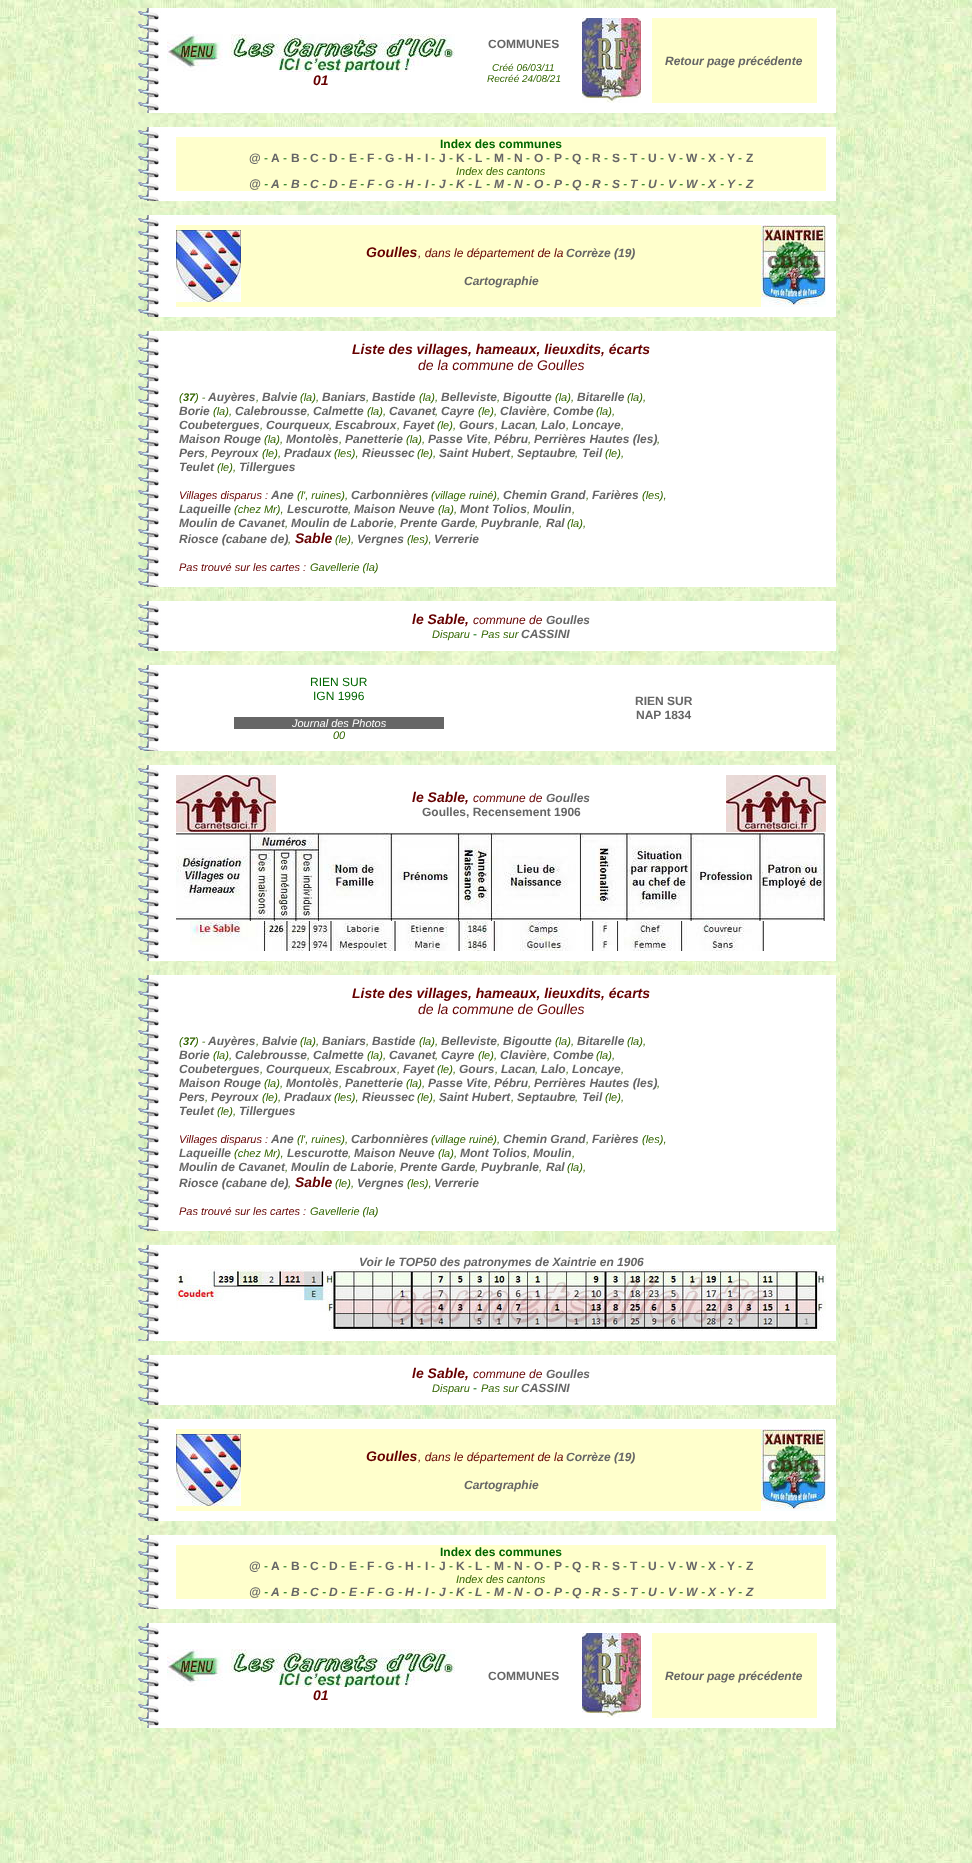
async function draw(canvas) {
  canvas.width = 972;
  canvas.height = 1863;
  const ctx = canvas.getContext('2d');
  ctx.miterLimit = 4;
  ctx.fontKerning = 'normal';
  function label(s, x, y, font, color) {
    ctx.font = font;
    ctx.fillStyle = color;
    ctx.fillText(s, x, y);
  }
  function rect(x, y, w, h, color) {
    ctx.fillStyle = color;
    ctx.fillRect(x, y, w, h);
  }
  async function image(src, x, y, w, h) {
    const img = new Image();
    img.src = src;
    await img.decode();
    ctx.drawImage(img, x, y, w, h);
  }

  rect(0, 0, 972, 1863, '#fff');
  await image('assets/img1.png', 0, 0, 972, 1863);
  await image('assets/img2.png', 138, 8, 698, 105);
  label('COMMUNES', 488, 48, 'bold 12px Liberation Sans', '#666');
  label('Créé 06/03/11', 492, 71, 'italic 10px Liberation Sans', '#360');
  label('Recréé 24/08/21', 487, 82, 'italic 10px Liberation Sans', '#360');
  await image('assets/img3.png', 582, 18, 59, 85);
  rect(652, 18, 165, 85, '#ffc');
  label('Retour page précédente', 665, 65, 'italic bold 12px Liberation Sans', '#666');
  await image('assets/img4.png', 167, 34, 288, 38);
  label('01', 313, 85, 'italic bold 14px Liberation Sans', '#600');
  await image('assets/img5.png', 138, 127, 698, 74);
  rect(176, 137, 650, 54, '#ffc');
  label('Index des communes', 440, 148, 'bold 12px Liberation Sans', '#060');
  label('@', 249, 162, 'bold 12px Liberation Sans', '#666');
  label('-', 264, 162, '12px Liberation Sans', '#060');
  label('A', 271, 162, 'bold 12px Liberation Sans', '#666');
  label('-', 283, 162, '12px Liberation Sans', '#060');
  label('B', 291, 162, 'bold 12px Liberation Sans', '#666');
  label('-', 303, 162, '12px Liberation Sans', '#060');
  label('C', 310, 162, 'bold 12px Liberation Sans', '#666');
  label('-', 322, 162, '12px Liberation Sans', '#060');
  label('D', 329, 162, 'bold 12px Liberation Sans', '#666');
  label('-', 341, 162, '12px Liberation Sans', '#060');
  label('E', 349, 162, 'bold 12px Liberation Sans', '#666');
  label('-', 360, 162, '12px Liberation Sans', '#060');
  label('F', 367, 162, 'bold 12px Liberation Sans', '#666');
  label('-', 378, 162, '12px Liberation Sans', '#060');
  label('G', 385, 162, 'bold 12px Liberation Sans', '#666');
  label('-', 398, 162, '12px Liberation Sans', '#060');
  label('H', 405, 162, 'bold 12px Liberation Sans', '#666');
  label('-', 417, 162, '12px Liberation Sans', '#060');
  label('I', 425, 162, 'bold 12px Liberation Sans', '#666');
  label('-', 431, 162, '12px Liberation Sans', '#060');
  label('J', 439, 162, 'bold 12px Liberation Sans', '#666');
  label('-', 449, 162, '12px Liberation Sans', '#060');
  label('K', 456, 162, 'bold 12px Liberation Sans', '#666');
  label('-', 468, 162, '12px Liberation Sans', '#060');
  label('L', 475, 162, 'bold 12px Liberation Sans', '#666');
  label('-', 486, 162, '12px Liberation Sans', '#060');
  label('M', 494, 162, 'bold 12px Liberation Sans', '#666');
  label('-', 507, 162, '12px Liberation Sans', '#060');
  label('N', 514, 162, 'bold 12px Liberation Sans', '#666');
  label('-', 526, 162, '12px Liberation Sans', '#060');
  label('O', 534, 162, 'bold 12px Liberation Sans', '#666');
  label('-', 546, 162, '12px Liberation Sans', '#060');
  label('P', 554, 162, 'bold 12px Liberation Sans', '#666');
  label('-', 565, 162, '12px Liberation Sans', '#060');
  label('Q', 572, 162, 'bold 12px Liberation Sans', '#666');
  label('-', 585, 162, '12px Liberation Sans', '#060');
  label('R', 592, 162, 'bold 12px Liberation Sans', '#666');
  label('-', 604, 162, '12px Liberation Sans', '#060');
  label('S', 612, 162, 'bold 12px Liberation Sans', '#666');
  label('-', 623, 162, '12px Liberation Sans', '#060');
  label('T', 630, 162, 'bold 12px Liberation Sans', '#666');
  label('-', 641, 162, '12px Liberation Sans', '#060');
  label('U', 648, 162, 'bold 12px Liberation Sans', '#666');
  label('-', 660, 162, '12px Liberation Sans', '#060');
  label('V', 668, 162, 'bold 12px Liberation Sans', '#666');
  label('-', 679, 162, '12px Liberation Sans', '#060');
  label('W', 686, 162, 'bold 12px Liberation Sans', '#666');
  label('-', 701, 162, '12px Liberation Sans', '#060');
  label('X', 708, 162, 'bold 12px Liberation Sans', '#666');
  label('-', 720, 162, '12px Liberation Sans', '#060');
  label('Y', 727, 162, 'bold 12px Liberation Sans', '#666');
  label('-', 738, 162, '12px Liberation Sans', '#060');
  label('Z', 746, 162, 'bold 12px Liberation Sans', '#666');
  label('Index des cantons', 456, 175, 'italic 11px Liberation Sans', '#360');
  label('@', 249, 188, 'italic bold 12px Liberation Sans', '#666');
  label('-', 264, 188, 'italic 12px Liberation Sans', '#060');
  label('A', 271, 188, 'italic bold 12px Liberation Sans', '#666');
  label('-', 283, 188, 'italic 12px Liberation Sans', '#060');
  label('B', 291, 188, 'italic bold 12px Liberation Sans', '#666');
  label('-', 303, 188, 'italic 12px Liberation Sans', '#060');
  label('C', 310, 188, 'italic bold 12px Liberation Sans', '#666');
  label('-', 322, 188, 'italic 12px Liberation Sans', '#060');
  label('D', 329, 188, 'italic bold 12px Liberation Sans', '#666');
  label('-', 341, 188, 'italic 12px Liberation Sans', '#060');
  label('E', 349, 188, 'italic bold 12px Liberation Sans', '#666');
  label('-', 360, 188, 'italic 12px Liberation Sans', '#060');
  label('F', 367, 188, 'italic bold 12px Liberation Sans', '#666');
  label('-', 378, 188, 'italic 12px Liberation Sans', '#060');
  label('G', 385, 188, 'italic bold 12px Liberation Sans', '#666');
  label('-', 398, 188, 'italic 12px Liberation Sans', '#060');
  label('H', 405, 188, 'italic bold 12px Liberation Sans', '#666');
  label('-', 417, 188, 'italic 12px Liberation Sans', '#060');
  label('I', 425, 188, 'italic bold 12px Liberation Sans', '#666');
  label('-', 431, 188, 'italic 12px Liberation Sans', '#060');
  label('J', 439, 188, 'italic bold 12px Liberation Sans', '#666');
  label('-', 449, 188, 'italic 12px Liberation Sans', '#060');
  label('K', 456, 188, 'italic bold 12px Liberation Sans', '#666');
  label('-', 468, 188, 'italic 12px Liberation Sans', '#060');
  label('L', 475, 188, 'italic bold 12px Liberation Sans', '#666');
  label('-', 486, 188, 'italic 12px Liberation Sans', '#060');
  label('M', 494, 188, 'italic bold 12px Liberation Sans', '#666');
  label('-', 507, 188, 'italic 12px Liberation Sans', '#060');
  label('N', 514, 188, 'italic bold 12px Liberation Sans', '#666');
  label('-', 526, 188, 'italic 12px Liberation Sans', '#060');
  label('O', 534, 188, 'italic bold 12px Liberation Sans', '#666');
  label('-', 546, 188, 'italic 12px Liberation Sans', '#060');
  label('P', 554, 188, 'italic bold 12px Liberation Sans', '#666');
  label('-', 565, 188, 'italic 12px Liberation Sans', '#060');
  label('Q', 572, 188, 'italic bold 12px Liberation Sans', '#666');
  label('-', 585, 188, 'italic 12px Liberation Sans', '#060');
  label('R', 592, 188, 'italic bold 12px Liberation Sans', '#666');
  label('-', 604, 188, 'italic 12px Liberation Sans', '#060');
  label('S', 612, 188, 'italic bold 12px Liberation Sans', '#666');
  label('-', 623, 188, 'italic 12px Liberation Sans', '#060');
  label('T', 630, 188, 'italic bold 12px Liberation Sans', '#666');
  label('-', 641, 188, 'italic 12px Liberation Sans', '#060');
  label('U', 648, 188, 'italic bold 12px Liberation Sans', '#666');
  label('-', 660, 188, 'italic 12px Liberation Sans', '#060');
  label('V', 668, 188, 'italic bold 12px Liberation Sans', '#666');
  label('-', 679, 188, 'italic 12px Liberation Sans', '#060');
  label('W', 686, 188, 'italic bold 12px Liberation Sans', '#666');
  label('-', 701, 188, 'italic 12px Liberation Sans', '#060');
  label('X', 708, 188, 'italic bold 12px Liberation Sans', '#666');
  label('-', 720, 188, 'italic 12px Liberation Sans', '#060');
  label('Y', 727, 188, 'italic bold 12px Liberation Sans', '#666');
  label('-', 738, 188, 'italic 12px Liberation Sans', '#060');
  label('Z', 746, 188, 'italic bold 12px Liberation Sans', '#666');
  await image('assets/img6.png', 138, 215, 698, 102);
  rect(176, 225, 585, 82, '#ffc');
  await image('assets/img7.png', 176, 230, 65, 72);
  label('Goulles', 366, 257, 'italic bold 14px Liberation Sans', '#600');
  label(', dans le département de la', 418, 257, 'italic 12px Liberation Sans', '#600');
  label('Corrèze (19)', 566, 257, 'italic bold 12px Liberation Sans', '#666');
  label('Cartographie', 464, 285, 'italic bold 12px Liberation Sans', '#666');
  await image('assets/img8.png', 761, 225, 65, 82);
  await image('assets/img9.png', 138, 331, 698, 256);
  label('Liste des villages, hameaux, lieuxdits, écarts', 352, 354, 'italic bold 14px Liberation Sans', '#600');
  label('de la commune de Goulles', 418, 370, 'italic 14px Liberation Sans', '#600');
  label('(', 179, 401, 'italic 11px Liberation Sans', '#360');
  label('37', 183, 401, 'italic bold 11px Liberation Sans', '#360');
  label(') -', 195, 401, 'italic 11px Liberation Sans', '#360');
  label('Auyères', 208, 401, 'italic bold 12px Liberation Sans', '#666');
  label(',', 256, 401, 'italic 11px Liberation Sans', '#360');
  label('Balvie', 262, 401, 'italic bold 12px Liberation Sans', '#666');
  label('(la),', 300, 401, 'italic 11px Liberation Sans', '#360');
  label('Baniars', 322, 401, 'italic bold 12px Liberation Sans', '#666');
  label(',', 366, 401, 'italic 11px Liberation Sans', '#360');
  label('Bastide', 372, 401, 'italic bold 12px Liberation Sans', '#666');
  label('(la),', 419, 401, 'italic 11px Liberation Sans', '#360');
  label('Belleviste', 441, 401, 'italic bold 12px Liberation Sans', '#666');
  label(',', 497, 401, 'italic 11px Liberation Sans', '#360');
  label('Bigoutte', 503, 401, 'italic bold 12px Liberation Sans', '#666');
  label('(la),', 555, 401, 'italic 11px Liberation Sans', '#360');
  label('Bitarelle', 577, 401, 'italic bold 12px Liberation Sans', '#666');
  label('(la),', 627, 401, 'italic 11px Liberation Sans', '#360');
  label('Borie', 179, 415, 'italic bold 12px Liberation Sans', '#666');
  label('(la),', 213, 415, 'italic 11px Liberation Sans', '#360');
  label('Calebrousse', 235, 415, 'italic bold 12px Liberation Sans', '#666');
  label(',', 307, 415, 'italic 11px Liberation Sans', '#360');
  label('Calmette', 313, 415, 'italic bold 12px Liberation Sans', '#666');
  label('(la),', 367, 415, 'italic 11px Liberation Sans', '#360');
  label('Cavanet', 389, 415, 'italic bold 12px Liberation Sans', '#666');
  label(',', 435, 415, 'italic 11px Liberation Sans', '#360');
  label('Cayre', 441, 415, 'italic bold 12px Liberation Sans', '#666');
  label('(le),', 478, 415, 'italic 11px Liberation Sans', '#360');
  label('Clavière', 500, 415, 'italic bold 12px Liberation Sans', '#666');
  label(',', 547, 415, 'italic 11px Liberation Sans', '#360');
  label('Combe', 553, 415, 'italic bold 12px Liberation Sans', '#666');
  label('(la),', 596, 415, 'italic 11px Liberation Sans', '#360');
  label('Coubetergues', 179, 429, 'italic bold 12px Liberation Sans', '#666');
  label(',', 260, 429, 'italic 11px Liberation Sans', '#360');
  label('Courqueux', 266, 429, 'italic bold 12px Liberation Sans', '#666');
  label('Escabroux', 335, 429, 'italic bold 12px Liberation Sans', '#666');
  label('Fayet', 403, 429, 'italic bold 12px Liberation Sans', '#666');
  label('(le),', 437, 429, 'italic 11px Liberation Sans', '#360');
  label('Gours', 459, 429, 'italic bold 12px Liberation Sans', '#666');
  label('Lacan', 501, 429, 'italic bold 12px Liberation Sans', '#666');
  label('Lalo', 541, 429, 'italic bold 12px Liberation Sans', '#666');
  label('Loncaye', 572, 429, 'italic bold 12px Liberation Sans', '#666');
  label(',', 329, 429, 'italic 11px Liberation Sans', '#360');
  label(',', 397, 429, 'italic 11px Liberation Sans', '#360');
  label(',', 495, 429, 'italic 11px Liberation Sans', '#360');
  label(',', 535, 429, 'italic 11px Liberation Sans', '#360');
  label(',', 566, 429, 'italic 11px Liberation Sans', '#360');
  label(',', 621, 429, 'italic 11px Liberation Sans', '#360');
  label('Maison Rouge', 179, 443, 'italic bold 12px Liberation Sans', '#666');
  label('(la),', 264, 443, 'italic 11px Liberation Sans', '#360');
  label('Montolès', 286, 443, 'italic bold 12px Liberation Sans', '#666');
  label(',', 339, 443, 'italic 11px Liberation Sans', '#360');
  label('Panetterie', 345, 443, 'italic bold 12px Liberation Sans', '#666');
  label('(la),', 406, 443, 'italic 11px Liberation Sans', '#360');
  label('Passe Vite', 428, 443, 'italic bold 12px Liberation Sans', '#666');
  label(',', 488, 443, 'italic 11px Liberation Sans', '#360');
  label('Pébru', 494, 443, 'italic bold 12px Liberation Sans', '#666');
  label(',', 528, 443, 'italic 11px Liberation Sans', '#360');
  label('Perrières Hautes (les)', 534, 443, 'italic bold 12px Liberation Sans', '#666');
  label(',', 657, 443, 'italic 11px Liberation Sans', '#360');
  label('Pers', 179, 457, 'italic bold 12px Liberation Sans', '#666');
  label(',', 205, 457, 'italic 11px Liberation Sans', '#360');
  label('Peyroux', 211, 457, 'italic bold 12px Liberation Sans', '#666');
  label('(le),', 262, 457, 'italic 11px Liberation Sans', '#360');
  label('Pradaux', 284, 457, 'italic bold 12px Liberation Sans', '#666');
  label('(les),', 334, 457, 'italic 11px Liberation Sans', '#360');
  label('Rieussec', 362, 457, 'italic bold 12px Liberation Sans', '#666');
  label('(le),', 417, 457, 'italic 11px Liberation Sans', '#360');
  label('Saint Hubert', 439, 457, 'italic bold 12px Liberation Sans', '#666');
  label(',', 511, 457, 'italic 11px Liberation Sans', '#360');
  label('Septaubre', 517, 457, 'italic bold 12px Liberation Sans', '#666');
  label(',', 575, 457, 'italic 11px Liberation Sans', '#360');
  label('Teil', 582, 457, 'italic bold 12px Liberation Sans', '#666');
  label('(le),', 605, 457, 'italic 11px Liberation Sans', '#360');
  label('Teulet', 179, 471, 'italic bold 12px Liberation Sans', '#666');
  label('(le),', 217, 471, 'italic 11px Liberation Sans', '#360');
  label('Tillergues', 239, 471, 'italic bold 12px Liberation Sans', '#666');
  label('Villages disparus :', 179, 499, 'italic 11px Liberation Sans', '#600');
  label('Ane', 271, 499, 'italic bold 12px Liberation Sans', '#666');
  label('(l\', ruines),', 297, 499, 'italic 11px Liberation Sans', '#360');
  label('Carbonnières', 351, 499, 'italic bold 12px Liberation Sans', '#666');
  label('(village ruiné),', 431, 499, 'italic 11px Liberation Sans', '#360');
  label('Chemin Grand', 503, 499, 'italic bold 12px Liberation Sans', '#666');
  label('Farières', 592, 499, 'italic bold 12px Liberation Sans', '#666');
  label('(les),', 642, 499, 'italic 11px Liberation Sans', '#360');
  label(',', 586, 499, 'italic 11px Liberation Sans', '#360');
  label('Laqueille', 179, 513, 'italic bold 12px Liberation Sans', '#666');
  label('(chez Mr),', 234, 513, 'italic 11px Liberation Sans', '#360');
  label('Lescurotte', 287, 513, 'italic bold 12px Liberation Sans', '#666');
  label(',', 348, 513, 'italic 11px Liberation Sans', '#360');
  label('Maison Neuve', 354, 513, 'italic bold 12px Liberation Sans', '#666');
  label('(la),', 438, 513, 'italic 11px Liberation Sans', '#360');
  label('Mont Tolios', 460, 513, 'italic bold 12px Liberation Sans', '#666');
  label(',', 527, 513, 'italic 11px Liberation Sans', '#360');
  label('Moulin', 533, 513, 'italic bold 12px Liberation Sans', '#666');
  label(',', 572, 513, 'italic 11px Liberation Sans', '#360');
  label('Moulin de Cavanet', 179, 527, 'italic bold 12px Liberation Sans', '#666');
  label('Moulin de Laborie', 291, 527, 'italic bold 12px Liberation Sans', '#666');
  label('Prente Garde', 400, 527, 'italic bold 12px Liberation Sans', '#666');
  label('Puybranle', 481, 527, 'italic bold 12px Liberation Sans', '#666');
  label('Ral', 546, 527, 'italic bold 12px Liberation Sans', '#666');
  label('(la),', 567, 527, 'italic 11px Liberation Sans', '#360');
  label(',', 285, 527, 'italic 11px Liberation Sans', '#360');
  label(',', 394, 527, 'italic 11px Liberation Sans', '#360');
  label(',', 475, 527, 'italic 11px Liberation Sans', '#360');
  label(',', 539, 527, 'italic 11px Liberation Sans', '#360');
  label('Riosce (cabane de)', 179, 543, 'italic bold 12px Liberation Sans', '#666');
  label(',', 288, 543, 'italic 11px Liberation Sans', '#360');
  label('Sable', 295, 543, 'italic bold 14px Liberation Sans', '#600');
  label('(le),', 335, 543, 'italic 11px Liberation Sans', '#360');
  label('Vergnes', 357, 543, 'italic bold 12px Liberation Sans', '#666');
  label('(les),', 407, 543, 'italic 11px Liberation Sans', '#360');
  label('Verrerie', 434, 543, 'italic bold 12px Liberation Sans', '#666');
  label('Pas trouvé sur les cartes :', 179, 571, 'italic 11px Liberation Sans', '#600');
  label('Gavellerie (la)', 310, 571, 'italic 11px Liberation Sans', '#360');
  await image('assets/img10.png', 138, 601, 698, 50);
  label('le Sable,', 412, 624, 'italic bold 14px Liberation Sans', '#600');
  label('commune de', 473, 624, 'italic 12px Liberation Sans', '#600');
  label('Goulles', 546, 624, 'italic bold 12px Liberation Sans', '#666');
  label('Disparu', 432, 638, 'italic 11px Liberation Sans', '#360');
  label('-', 473, 638, '12px Liberation Sans', '#060');
  label('Pas sur', 481, 638, 'italic 11px Liberation Sans', '#360');
  label('CASSINI', 521, 638, 'italic bold 12px Liberation Sans', '#666');
  await image('assets/img11.png', 138, 665, 698, 86);
  label('RIEN SUR', 310, 686, '12px Liberation Sans', '#060');
  label('IGN 1996', 313, 700, '12px Liberation Sans', '#060');
  rect(234, 717, 210, 12, '#666');
  label('Journal des Photos', 292, 727, 'italic 11px Liberation Sans', '#fff');
  label('00', 333, 739, 'italic 11px Liberation Sans', '#360');
  label('RIEN SUR', 635, 705, 'bold 12px Liberation Sans', '#666');
  label('NAP 1834', 636, 719, 'bold 12px Liberation Sans', '#666');
  await image('assets/img12.png', 138, 765, 698, 196);
  await image('assets/img13.png', 176, 775, 100, 57);
  label('le Sable,', 412, 802, 'italic bold 14px Liberation Sans', '#600');
  label('commune de', 473, 802, 'italic 12px Liberation Sans', '#600');
  label('Goulles', 546, 802, 'italic bold 12px Liberation Sans', '#666');
  label('Goulles, Recensement 1906', 422, 816, 'bold 12px Liberation Sans', '#666');
  await image('assets/img13.png', 726, 775, 100, 57);
  await image('assets/img14.png', 176, 832, 650, 89);
  await image('assets/img15.png', 190, 921, 574, 30);
  await image('assets/img16.png', 138, 975, 698, 256);
  label('Liste des villages, hameaux, lieuxdits, écarts', 352, 998, 'italic bold 14px Liberation Sans', '#600');
  label('de la commune de Goulles', 418, 1014, 'italic 14px Liberation Sans', '#600');
  label('(', 179, 1045, 'italic 11px Liberation Sans', '#360');
  label('37', 183, 1045, 'italic bold 11px Liberation Sans', '#360');
  label(') -', 195, 1045, 'italic 11px Liberation Sans', '#360');
  label('Auyères', 208, 1045, 'italic bold 12px Liberation Sans', '#666');
  label(',', 256, 1045, 'italic 11px Liberation Sans', '#360');
  label('Balvie', 262, 1045, 'italic bold 12px Liberation Sans', '#666');
  label('(la),', 300, 1045, 'italic 11px Liberation Sans', '#360');
  label('Baniars', 322, 1045, 'italic bold 12px Liberation Sans', '#666');
  label(',', 366, 1045, 'italic 11px Liberation Sans', '#360');
  label('Bastide', 372, 1045, 'italic bold 12px Liberation Sans', '#666');
  label('(la),', 419, 1045, 'italic 11px Liberation Sans', '#360');
  label('Belleviste', 441, 1045, 'italic bold 12px Liberation Sans', '#666');
  label(',', 497, 1045, 'italic 11px Liberation Sans', '#360');
  label('Bigoutte', 503, 1045, 'italic bold 12px Liberation Sans', '#666');
  label('(la),', 555, 1045, 'italic 11px Liberation Sans', '#360');
  label('Bitarelle', 577, 1045, 'italic bold 12px Liberation Sans', '#666');
  label('(la),', 627, 1045, 'italic 11px Liberation Sans', '#360');
  label('Borie', 179, 1059, 'italic bold 12px Liberation Sans', '#666');
  label('(la),', 213, 1059, 'italic 11px Liberation Sans', '#360');
  label('Calebrousse', 235, 1059, 'italic bold 12px Liberation Sans', '#666');
  label(',', 307, 1059, 'italic 11px Liberation Sans', '#360');
  label('Calmette', 313, 1059, 'italic bold 12px Liberation Sans', '#666');
  label('(la),', 367, 1059, 'italic 11px Liberation Sans', '#360');
  label('Cavanet', 389, 1059, 'italic bold 12px Liberation Sans', '#666');
  label(',', 435, 1059, 'italic 11px Liberation Sans', '#360');
  label('Cayre', 441, 1059, 'italic bold 12px Liberation Sans', '#666');
  label('(le),', 478, 1059, 'italic 11px Liberation Sans', '#360');
  label('Clavière', 500, 1059, 'italic bold 12px Liberation Sans', '#666');
  label(',', 547, 1059, 'italic 11px Liberation Sans', '#360');
  label('Combe', 553, 1059, 'italic bold 12px Liberation Sans', '#666');
  label('(la),', 596, 1059, 'italic 11px Liberation Sans', '#360');
  label('Coubetergues', 179, 1073, 'italic bold 12px Liberation Sans', '#666');
  label(',', 260, 1073, 'italic 11px Liberation Sans', '#360');
  label('Courqueux', 266, 1073, 'italic bold 12px Liberation Sans', '#666');
  label('Escabroux', 335, 1073, 'italic bold 12px Liberation Sans', '#666');
  label('Fayet', 403, 1073, 'italic bold 12px Liberation Sans', '#666');
  label('(le),', 437, 1073, 'italic 11px Liberation Sans', '#360');
  label('Gours', 459, 1073, 'italic bold 12px Liberation Sans', '#666');
  label('Lacan', 501, 1073, 'italic bold 12px Liberation Sans', '#666');
  label('Lalo', 541, 1073, 'italic bold 12px Liberation Sans', '#666');
  label('Loncaye', 572, 1073, 'italic bold 12px Liberation Sans', '#666');
  label(',', 329, 1073, 'italic 11px Liberation Sans', '#360');
  label(',', 397, 1073, 'italic 11px Liberation Sans', '#360');
  label(',', 495, 1073, 'italic 11px Liberation Sans', '#360');
  label(',', 535, 1073, 'italic 11px Liberation Sans', '#360');
  label(',', 566, 1073, 'italic 11px Liberation Sans', '#360');
  label(',', 621, 1073, 'italic 11px Liberation Sans', '#360');
  label('Maison Rouge', 179, 1087, 'italic bold 12px Liberation Sans', '#666');
  label('(la),', 264, 1087, 'italic 11px Liberation Sans', '#360');
  label('Montolès', 286, 1087, 'italic bold 12px Liberation Sans', '#666');
  label(',', 339, 1087, 'italic 11px Liberation Sans', '#360');
  label('Panetterie', 345, 1087, 'italic bold 12px Liberation Sans', '#666');
  label('(la),', 406, 1087, 'italic 11px Liberation Sans', '#360');
  label('Passe Vite', 428, 1087, 'italic bold 12px Liberation Sans', '#666');
  label(',', 488, 1087, 'italic 11px Liberation Sans', '#360');
  label('Pébru', 494, 1087, 'italic bold 12px Liberation Sans', '#666');
  label(',', 528, 1087, 'italic 11px Liberation Sans', '#360');
  label('Perrières Hautes (les)', 534, 1087, 'italic bold 12px Liberation Sans', '#666');
  label(',', 657, 1087, 'italic 11px Liberation Sans', '#360');
  label('Pers', 179, 1101, 'italic bold 12px Liberation Sans', '#666');
  label(',', 205, 1101, 'italic 11px Liberation Sans', '#360');
  label('Peyroux', 211, 1101, 'italic bold 12px Liberation Sans', '#666');
  label('(le),', 262, 1101, 'italic 11px Liberation Sans', '#360');
  label('Pradaux', 284, 1101, 'italic bold 12px Liberation Sans', '#666');
  label('(les),', 334, 1101, 'italic 11px Liberation Sans', '#360');
  label('Rieussec', 362, 1101, 'italic bold 12px Liberation Sans', '#666');
  label('(le),', 417, 1101, 'italic 11px Liberation Sans', '#360');
  label('Saint Hubert', 439, 1101, 'italic bold 12px Liberation Sans', '#666');
  label(',', 511, 1101, 'italic 11px Liberation Sans', '#360');
  label('Septaubre', 517, 1101, 'italic bold 12px Liberation Sans', '#666');
  label(',', 575, 1101, 'italic 11px Liberation Sans', '#360');
  label('Teil', 582, 1101, 'italic bold 12px Liberation Sans', '#666');
  label('(le),', 605, 1101, 'italic 11px Liberation Sans', '#360');
  label('Teulet', 179, 1115, 'italic bold 12px Liberation Sans', '#666');
  label('(le),', 217, 1115, 'italic 11px Liberation Sans', '#360');
  label('Tillergues', 239, 1115, 'italic bold 12px Liberation Sans', '#666');
  label('Villages disparus :', 179, 1143, 'italic 11px Liberation Sans', '#600');
  label('Ane', 271, 1143, 'italic bold 12px Liberation Sans', '#666');
  label('(l\', ruines),', 297, 1143, 'italic 11px Liberation Sans', '#360');
  label('Carbonnières', 351, 1143, 'italic bold 12px Liberation Sans', '#666');
  label('(village ruiné),', 431, 1143, 'italic 11px Liberation Sans', '#360');
  label('Chemin Grand', 503, 1143, 'italic bold 12px Liberation Sans', '#666');
  label('Farières', 592, 1143, 'italic bold 12px Liberation Sans', '#666');
  label('(les),', 642, 1143, 'italic 11px Liberation Sans', '#360');
  label(',', 586, 1143, 'italic 11px Liberation Sans', '#360');
  label('Laqueille', 179, 1157, 'italic bold 12px Liberation Sans', '#666');
  label('(chez Mr),', 234, 1157, 'italic 11px Liberation Sans', '#360');
  label('Lescurotte', 287, 1157, 'italic bold 12px Liberation Sans', '#666');
  label(',', 348, 1157, 'italic 11px Liberation Sans', '#360');
  label('Maison Neuve', 354, 1157, 'italic bold 12px Liberation Sans', '#666');
  label('(la),', 438, 1157, 'italic 11px Liberation Sans', '#360');
  label('Mont Tolios', 460, 1157, 'italic bold 12px Liberation Sans', '#666');
  label(',', 527, 1157, 'italic 11px Liberation Sans', '#360');
  label('Moulin', 533, 1157, 'italic bold 12px Liberation Sans', '#666');
  label(',', 572, 1157, 'italic 11px Liberation Sans', '#360');
  label('Moulin de Cavanet', 179, 1171, 'italic bold 12px Liberation Sans', '#666');
  label('Moulin de Laborie', 291, 1171, 'italic bold 12px Liberation Sans', '#666');
  label('Prente Garde', 400, 1171, 'italic bold 12px Liberation Sans', '#666');
  label('Puybranle', 481, 1171, 'italic bold 12px Liberation Sans', '#666');
  label('Ral', 546, 1171, 'italic bold 12px Liberation Sans', '#666');
  label('(la),', 567, 1171, 'italic 11px Liberation Sans', '#360');
  label(',', 285, 1171, 'italic 11px Liberation Sans', '#360');
  label(',', 394, 1171, 'italic 11px Liberation Sans', '#360');
  label(',', 475, 1171, 'italic 11px Liberation Sans', '#360');
  label(',', 539, 1171, 'italic 11px Liberation Sans', '#360');
  label('Riosce (cabane de)', 179, 1187, 'italic bold 12px Liberation Sans', '#666');
  label(',', 288, 1187, 'italic 11px Liberation Sans', '#360');
  label('Sable', 295, 1187, 'italic bold 14px Liberation Sans', '#600');
  label('(le),', 335, 1187, 'italic 11px Liberation Sans', '#360');
  label('Vergnes', 357, 1187, 'italic bold 12px Liberation Sans', '#666');
  label('(les),', 407, 1187, 'italic 11px Liberation Sans', '#360');
  label('Verrerie', 434, 1187, 'italic bold 12px Liberation Sans', '#666');
  label('Pas trouvé sur les cartes :', 179, 1215, 'italic 11px Liberation Sans', '#600');
  label('Gavellerie (la)', 310, 1215, 'italic 11px Liberation Sans', '#360');
  await image('assets/img17.png', 138, 1245, 698, 96);
  label('Voir le TOP50 des patronymes de Xaintrie en 1906', 359, 1266, 'italic bold 12px Liberation Sans', '#666');
  await image('assets/img18.png', 176, 1269, 650, 62);
  await image('assets/img19.png', 138, 1355, 698, 50);
  label('le Sable,', 412, 1378, 'italic bold 14px Liberation Sans', '#600');
  label('commune de', 473, 1378, 'italic 12px Liberation Sans', '#600');
  label('Goulles', 546, 1378, 'italic bold 12px Liberation Sans', '#666');
  label('Disparu', 432, 1392, 'italic 11px Liberation Sans', '#360');
  label('-', 473, 1392, '12px Liberation Sans', '#060');
  label('Pas sur', 481, 1392, 'italic 11px Liberation Sans', '#360');
  label('CASSINI', 521, 1392, 'italic bold 12px Liberation Sans', '#666');
  await image('assets/img20.png', 138, 1419, 698, 102);
  rect(176, 1429, 585, 82, '#ffc');
  await image('assets/img7.png', 176, 1434, 65, 72);
  label('Goulles', 366, 1461, 'italic bold 14px Liberation Sans', '#600');
  label(', dans le département de la', 418, 1461, 'italic 12px Liberation Sans', '#600');
  label('Corrèze (19)', 566, 1461, 'italic bold 12px Liberation Sans', '#666');
  label('Cartographie', 464, 1489, 'italic bold 12px Liberation Sans', '#666');
  await image('assets/img8.png', 761, 1429, 65, 82);
  await image('assets/img21.png', 138, 1535, 698, 74);
  rect(176, 1545, 650, 54, '#ffc');
  label('Index des communes', 440, 1556, 'bold 12px Liberation Sans', '#060');
  label('@', 249, 1570, 'bold 12px Liberation Sans', '#666');
  label('-', 264, 1570, '12px Liberation Sans', '#060');
  label('A', 271, 1570, 'bold 12px Liberation Sans', '#666');
  label('-', 283, 1570, '12px Liberation Sans', '#060');
  label('B', 291, 1570, 'bold 12px Liberation Sans', '#666');
  label('-', 303, 1570, '12px Liberation Sans', '#060');
  label('C', 310, 1570, 'bold 12px Liberation Sans', '#666');
  label('-', 322, 1570, '12px Liberation Sans', '#060');
  label('D', 329, 1570, 'bold 12px Liberation Sans', '#666');
  label('-', 341, 1570, '12px Liberation Sans', '#060');
  label('E', 349, 1570, 'bold 12px Liberation Sans', '#666');
  label('-', 360, 1570, '12px Liberation Sans', '#060');
  label('F', 367, 1570, 'bold 12px Liberation Sans', '#666');
  label('-', 378, 1570, '12px Liberation Sans', '#060');
  label('G', 385, 1570, 'bold 12px Liberation Sans', '#666');
  label('-', 398, 1570, '12px Liberation Sans', '#060');
  label('H', 405, 1570, 'bold 12px Liberation Sans', '#666');
  label('-', 417, 1570, '12px Liberation Sans', '#060');
  label('I', 425, 1570, 'bold 12px Liberation Sans', '#666');
  label('-', 431, 1570, '12px Liberation Sans', '#060');
  label('J', 439, 1570, 'bold 12px Liberation Sans', '#666');
  label('-', 449, 1570, '12px Liberation Sans', '#060');
  label('K', 456, 1570, 'bold 12px Liberation Sans', '#666');
  label('-', 468, 1570, '12px Liberation Sans', '#060');
  label('L', 475, 1570, 'bold 12px Liberation Sans', '#666');
  label('-', 486, 1570, '12px Liberation Sans', '#060');
  label('M', 494, 1570, 'bold 12px Liberation Sans', '#666');
  label('-', 507, 1570, '12px Liberation Sans', '#060');
  label('N', 514, 1570, 'bold 12px Liberation Sans', '#666');
  label('-', 526, 1570, '12px Liberation Sans', '#060');
  label('O', 534, 1570, 'bold 12px Liberation Sans', '#666');
  label('-', 546, 1570, '12px Liberation Sans', '#060');
  label('P', 554, 1570, 'bold 12px Liberation Sans', '#666');
  label('-', 565, 1570, '12px Liberation Sans', '#060');
  label('Q', 572, 1570, 'bold 12px Liberation Sans', '#666');
  label('-', 585, 1570, '12px Liberation Sans', '#060');
  label('R', 592, 1570, 'bold 12px Liberation Sans', '#666');
  label('-', 604, 1570, '12px Liberation Sans', '#060');
  label('S', 612, 1570, 'bold 12px Liberation Sans', '#666');
  label('-', 623, 1570, '12px Liberation Sans', '#060');
  label('T', 630, 1570, 'bold 12px Liberation Sans', '#666');
  label('-', 641, 1570, '12px Liberation Sans', '#060');
  label('U', 648, 1570, 'bold 12px Liberation Sans', '#666');
  label('-', 660, 1570, '12px Liberation Sans', '#060');
  label('V', 668, 1570, 'bold 12px Liberation Sans', '#666');
  label('-', 679, 1570, '12px Liberation Sans', '#060');
  label('W', 686, 1570, 'bold 12px Liberation Sans', '#666');
  label('-', 701, 1570, '12px Liberation Sans', '#060');
  label('X', 708, 1570, 'bold 12px Liberation Sans', '#666');
  label('-', 720, 1570, '12px Liberation Sans', '#060');
  label('Y', 727, 1570, 'bold 12px Liberation Sans', '#666');
  label('-', 738, 1570, '12px Liberation Sans', '#060');
  label('Z', 746, 1570, 'bold 12px Liberation Sans', '#666');
  label('Index des cantons', 456, 1583, 'italic 11px Liberation Sans', '#360');
  label('@', 249, 1596, 'italic bold 12px Liberation Sans', '#666');
  label('-', 264, 1596, 'italic 12px Liberation Sans', '#060');
  label('A', 271, 1596, 'italic bold 12px Liberation Sans', '#666');
  label('-', 283, 1596, 'italic 12px Liberation Sans', '#060');
  label('B', 291, 1596, 'italic bold 12px Liberation Sans', '#666');
  label('-', 303, 1596, 'italic 12px Liberation Sans', '#060');
  label('C', 310, 1596, 'italic bold 12px Liberation Sans', '#666');
  label('-', 322, 1596, 'italic 12px Liberation Sans', '#060');
  label('D', 329, 1596, 'italic bold 12px Liberation Sans', '#666');
  label('-', 341, 1596, 'italic 12px Liberation Sans', '#060');
  label('E', 349, 1596, 'italic bold 12px Liberation Sans', '#666');
  label('-', 360, 1596, 'italic 12px Liberation Sans', '#060');
  label('F', 367, 1596, 'italic bold 12px Liberation Sans', '#666');
  label('-', 378, 1596, 'italic 12px Liberation Sans', '#060');
  label('G', 385, 1596, 'italic bold 12px Liberation Sans', '#666');
  label('-', 398, 1596, 'italic 12px Liberation Sans', '#060');
  label('H', 405, 1596, 'italic bold 12px Liberation Sans', '#666');
  label('-', 417, 1596, 'italic 12px Liberation Sans', '#060');
  label('I', 425, 1596, 'italic bold 12px Liberation Sans', '#666');
  label('-', 431, 1596, 'italic 12px Liberation Sans', '#060');
  label('J', 439, 1596, 'italic bold 12px Liberation Sans', '#666');
  label('-', 449, 1596, 'italic 12px Liberation Sans', '#060');
  label('K', 456, 1596, 'italic bold 12px Liberation Sans', '#666');
  label('-', 468, 1596, 'italic 12px Liberation Sans', '#060');
  label('L', 475, 1596, 'italic bold 12px Liberation Sans', '#666');
  label('-', 486, 1596, 'italic 12px Liberation Sans', '#060');
  label('M', 494, 1596, 'italic bold 12px Liberation Sans', '#666');
  label('-', 507, 1596, 'italic 12px Liberation Sans', '#060');
  label('N', 514, 1596, 'italic bold 12px Liberation Sans', '#666');
  label('-', 526, 1596, 'italic 12px Liberation Sans', '#060');
  label('O', 534, 1596, 'italic bold 12px Liberation Sans', '#666');
  label('-', 546, 1596, 'italic 12px Liberation Sans', '#060');
  label('P', 554, 1596, 'italic bold 12px Liberation Sans', '#666');
  label('-', 565, 1596, 'italic 12px Liberation Sans', '#060');
  label('Q', 572, 1596, 'italic bold 12px Liberation Sans', '#666');
  label('-', 585, 1596, 'italic 12px Liberation Sans', '#060');
  label('R', 592, 1596, 'italic bold 12px Liberation Sans', '#666');
  label('-', 604, 1596, 'italic 12px Liberation Sans', '#060');
  label('S', 612, 1596, 'italic bold 12px Liberation Sans', '#666');
  label('-', 623, 1596, 'italic 12px Liberation Sans', '#060');
  label('T', 630, 1596, 'italic bold 12px Liberation Sans', '#666');
  label('-', 641, 1596, 'italic 12px Liberation Sans', '#060');
  label('U', 648, 1596, 'italic bold 12px Liberation Sans', '#666');
  label('-', 660, 1596, 'italic 12px Liberation Sans', '#060');
  label('V', 668, 1596, 'italic bold 12px Liberation Sans', '#666');
  label('-', 679, 1596, 'italic 12px Liberation Sans', '#060');
  label('W', 686, 1596, 'italic bold 12px Liberation Sans', '#666');
  label('-', 701, 1596, 'italic 12px Liberation Sans', '#060');
  label('X', 708, 1596, 'italic bold 12px Liberation Sans', '#666');
  label('-', 720, 1596, 'italic 12px Liberation Sans', '#060');
  label('Y', 727, 1596, 'italic bold 12px Liberation Sans', '#666');
  label('-', 738, 1596, 'italic 12px Liberation Sans', '#060');
  label('Z', 746, 1596, 'italic bold 12px Liberation Sans', '#666');
  await image('assets/img22.png', 138, 1623, 698, 105);
  label('COMMUNES', 488, 1680, 'bold 12px Liberation Sans', '#666');
  await image('assets/img3.png', 582, 1633, 59, 85);
  rect(652, 1633, 165, 85, '#ffc');
  label('Retour page précédente', 665, 1680, 'italic bold 12px Liberation Sans', '#666');
  await image('assets/img4.png', 167, 1649, 288, 38);
  label('01', 313, 1700, 'italic bold 14px Liberation Sans', '#600');
}

draw(document.querySelector('canvas'));
